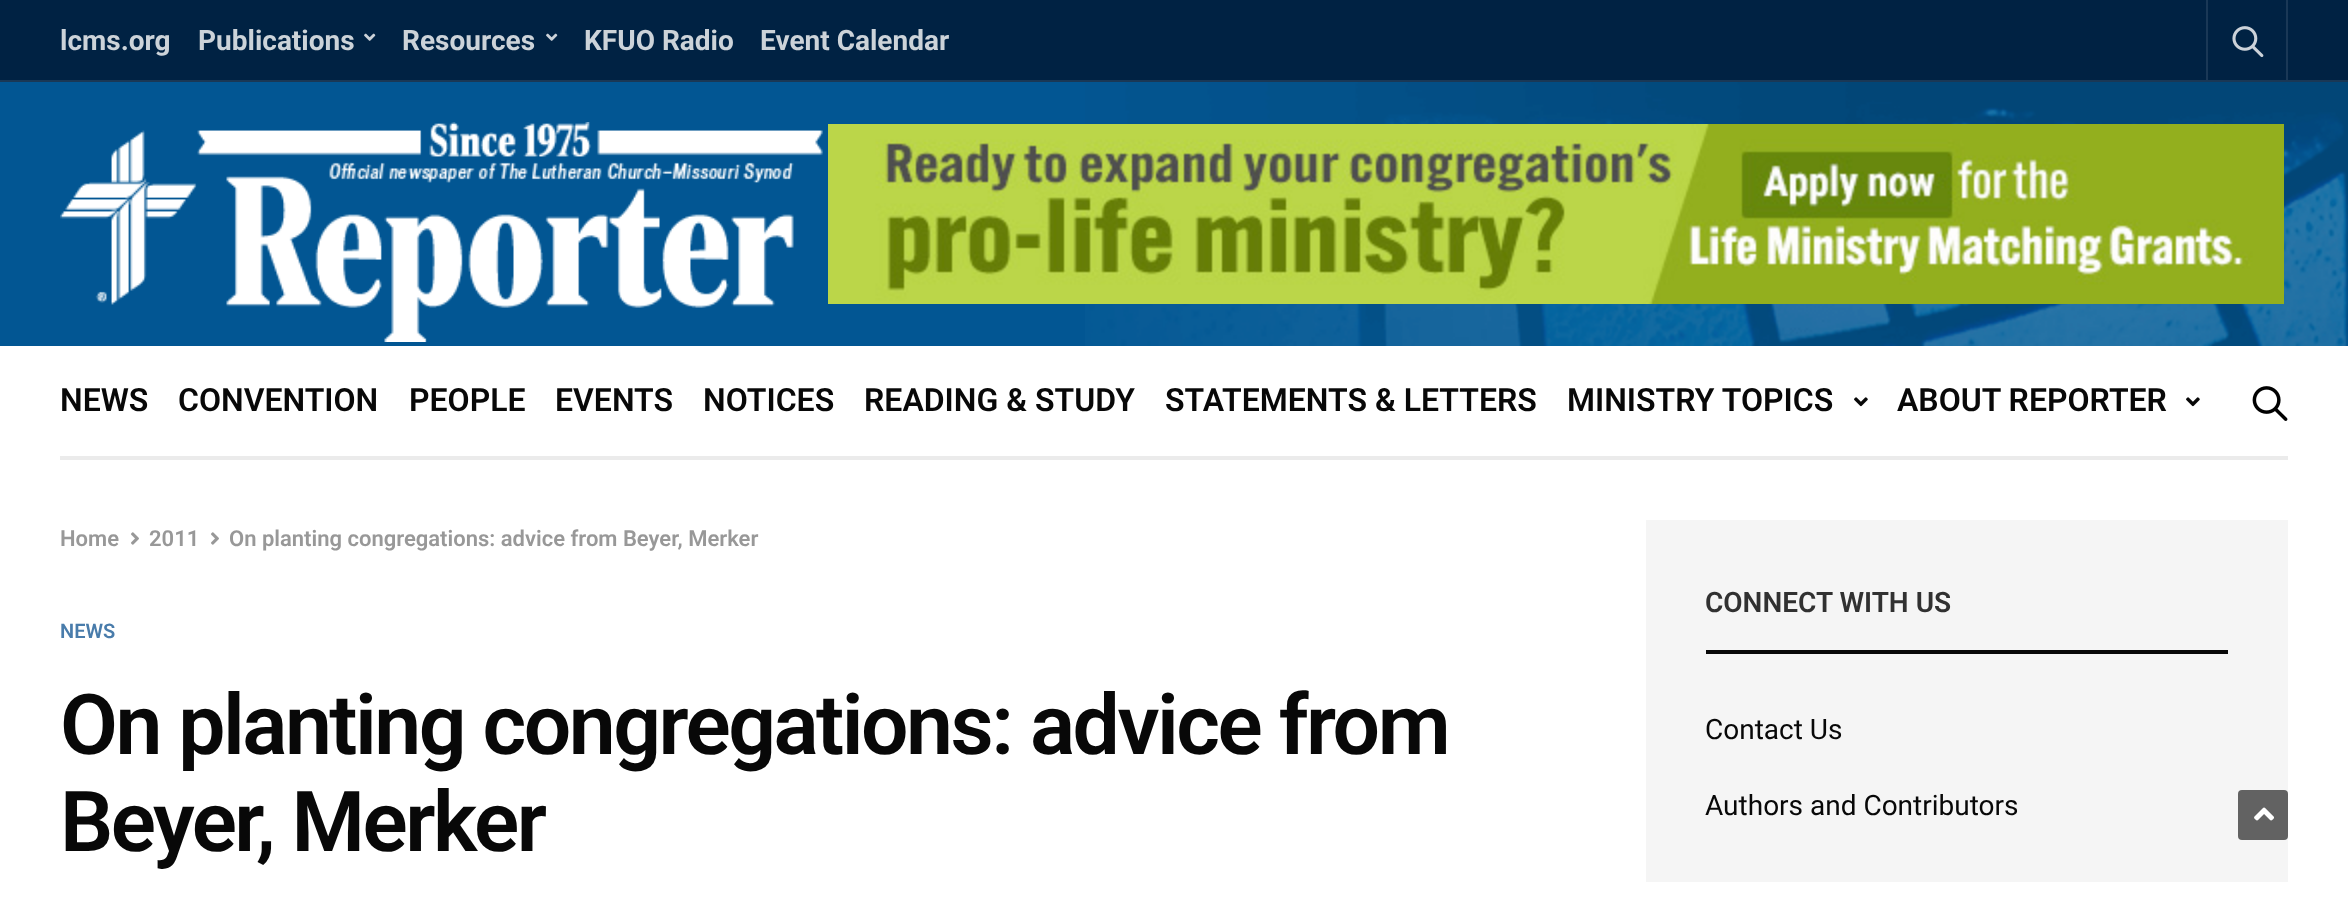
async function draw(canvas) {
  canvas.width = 2348;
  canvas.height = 899;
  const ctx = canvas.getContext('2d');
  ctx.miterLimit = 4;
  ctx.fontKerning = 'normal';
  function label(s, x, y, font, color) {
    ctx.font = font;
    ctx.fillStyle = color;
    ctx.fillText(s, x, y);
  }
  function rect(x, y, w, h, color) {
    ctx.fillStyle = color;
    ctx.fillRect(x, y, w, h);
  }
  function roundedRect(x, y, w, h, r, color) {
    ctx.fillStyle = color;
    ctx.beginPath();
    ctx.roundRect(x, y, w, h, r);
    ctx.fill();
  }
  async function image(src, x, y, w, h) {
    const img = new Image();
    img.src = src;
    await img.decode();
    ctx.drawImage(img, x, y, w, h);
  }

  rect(0, 0, 2348, 899, '#fff');
  rect(0, 0, 2348, 80, '#002243');
  rect(0, 80, 2348, 2, '#1a3856');
  label('lcms.org', 60, 50, 'bold 28px Roboto', '#ccd3d9');
  label('Publications', 198, 50, 'bold 28px Roboto', '#ccd3d9');
  await image('assets/img1.png', 364, 33, 12, 8);
  label('Resources', 402, 50, 'bold 28px Roboto', '#ccd3d9');
  await image('assets/img1.png', 546, 33, 12, 8);
  label('KFUO Radio', 584, 50, 'bold 28px Roboto', '#ccd3d9');
  label('Event Calendar', 760, 50, 'bold 28px Roboto', '#ccd3d9');
  rect(2286, 0, 2, 80, '#1a3856');
  rect(2206, 0, 2, 80, '#1a3856');
  await image('assets/img2.png', 2232, 26, 32, 32);
  rect(0, 82, 1085, 264, '#025693');
  await image('assets/img3.png', 1085, 82, 1263, 264);
  await image('assets/img4.png', 60, 122, 763, 220);
  await image('assets/img5.png', 828, 124, 1456, 180);
  rect(60, 456, 2228, 4, '#ebebeb');
  label('NEWS', 60, 411, '600 32px Roboto', '#080808');
  label('CONVENTION', 178, 411, '600 32px Roboto', '#080808');
  label('PEOPLE', 409, 411, '600 32px Roboto', '#080808');
  label('EVENTS', 555, 411, '600 32px Roboto', '#080808');
  label('NOTICES', 703, 411, '600 32px Roboto', '#080808');
  label('READING & STUDY', 864, 411, '600 32px Roboto', '#080808');
  label('STATEMENTS & LETTERS', 1165, 411, '600 32px Roboto', '#080808');
  label('MINISTRY TOPICS', 1567, 411, '600 32px Roboto', '#080808');
  await image('assets/img6.png', 1854, 397, 14, 10);
  label('ABOUT REPORTER', 1897, 411, '600 32px Roboto', '#080808');
  await image('assets/img6.png', 2186, 397, 14, 10);
  await image('assets/img7.png', 2252, 386, 36, 35);
  label('Home', 60, 546, '600 22px Roboto', '#989898');
  await image('assets/img8.png', 131, 532, 8, 13);
  label('2011', 149, 546, '600 22px Roboto', '#989898');
  await image('assets/img8.png', 211, 532, 8, 13);
  label('On planting congregations: advice from Beyer, Merker', 229, 546, '600 22px Roboto', '#989898');
  label('NEWS', 60, 638, '600 20px Roboto', '#497cab');
  ctx.letterSpacing = '-2.5px';
  label('On planting congregations: advice from', 60, 754, '600 84px Roboto', '#080808');
  label('Beyer, Merker', 60, 851, '600 84px Roboto', '#080808');
  rect(1646, 520, 642, 362, '#f5f5f5');
  rect(1706, 650, 522, 4, '#080808');
  ctx.letterSpacing = '0px';
  label('CONNECT WITH US', 1705, 612, '600 28px Roboto', '#313131');
  label('Contact Us', 1705, 739, '28px Roboto', '#080808');
  label('Authors and Contributors', 1705, 815, '28px Roboto', '#080808');
  roundedRect(2238, 790, 50, 50, 4, '#626262');
  await image('assets/img9.png', 2254, 807, 20, 14);
}

draw(document.querySelector('canvas'));
